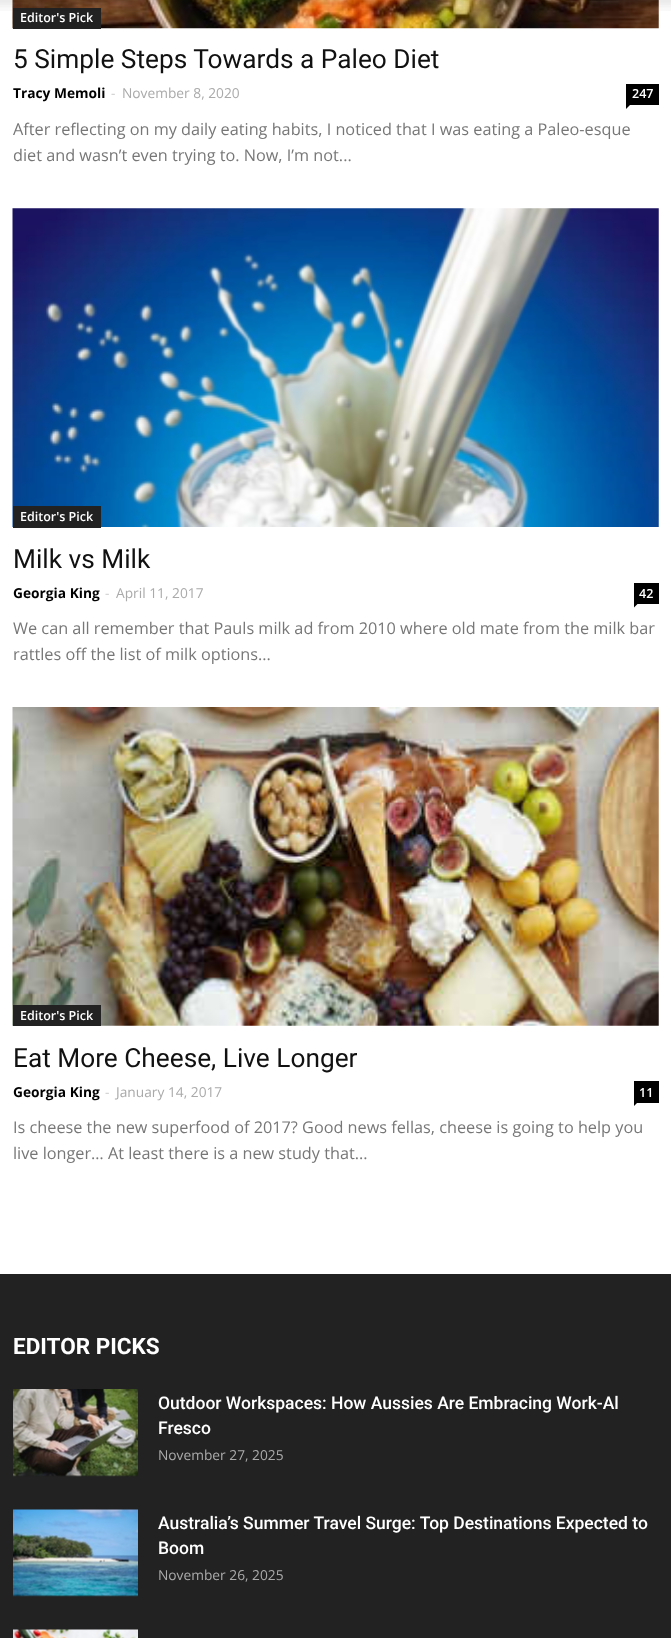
async function draw(canvas) {
  canvas.width = 671;
  canvas.height = 1638;
  const ctx = canvas.getContext('2d');
  ctx.miterLimit = 4;
  ctx.fontKerning = 'normal';
  function label(s, x, y, font, color) {
    ctx.font = font;
    ctx.fillStyle = color;
    ctx.fillText(s, x, y);
  }
  function rect(x, y, w, h, color) {
    ctx.fillStyle = color;
    ctx.fillRect(x, y, w, h);
  }
  async function image(src, x, y, w, h) {
    const img = new Image();
    img.src = src;
    await img.decode();
    ctx.drawImage(img, x, y, w, h);
  }
  let path;

  rect(0, 0, 671, 1638, '#fff');
  await image('assets/img2.png', 12, 0, 647, 29);
  rect(13, 8, 88, 21, '#222');
  await image('assets/img1.png', 0, 0, 671, 11);
  label('Editor\'s Pick', 20, 22, '600 12.5px Open Sans', '#fff');
  label('5 Simple Steps Towards a Paleo Diet', 13, 68, '26.25px Roboto', '#111');
  label('Tracy Memoli', 13, 98, 'bold 13.75px Open Sans', '#000');
  label('-', 111, 98, '13.75px Open Sans', '#ccc');
  label('November 8, 2020', 122, 98, '13.75px Open Sans', '#aaa');
  rect(626, 84, 33, 21, '#000');
  label('247', 632, 98, '600 12.5px Open Sans', '#fff');
  ctx.fillStyle = '#000';
  path = new Path2D('M626 105H630L626 109Z');
  ctx.fill(path);
  label('After reflecting on my daily eating habits, I noticed that I was eating a Paleo-esque', 13, 135, '16.25px Open Sans', '#777');
  label('diet and wasn’t even trying to. Now, I’m not...', 13, 161, '16.25px Open Sans', '#777');
  await image('assets/img3.png', 12, 208, 647, 319);
  rect(13, 506, 88, 22, '#222');
  label('Editor\'s Pick', 20, 521, '600 12.5px Open Sans', '#fff');
  label('Milk vs Milk', 13, 568, '26.25px Roboto', '#111');
  label('Georgia King', 13, 598, 'bold 13.75px Open Sans', '#000');
  label('-', 105, 598, '13.75px Open Sans', '#ccc');
  label('April 11, 2017', 116, 598, '13.75px Open Sans', '#aaa');
  rect(634, 583, 25, 21, '#000');
  label('42', 639, 598, '600 12.5px Open Sans', '#fff');
  ctx.fillStyle = '#000';
  path = new Path2D('M634 604H637.5L634 607.5Z');
  ctx.fill(path);
  label('We can all remember that Pauls milk ad from 2010 where old mate from the milk bar', 13, 634, '16.25px Open Sans', '#777');
  label('rattles off the list of milk options...', 13, 660, '16.25px Open Sans', '#777');
  await image('assets/img4.png', 12, 707, 647, 319);
  rect(13, 1005, 88, 21, '#222');
  label('Editor\'s Pick', 20, 1020, '600 12.5px Open Sans', '#fff');
  label('Eat More Cheese, Live Longer', 13, 1067, '26.25px Roboto', '#111');
  label('Georgia King', 13, 1097, 'bold 13.75px Open Sans', '#000');
  label('-', 105, 1097, '13.75px Open Sans', '#ccc');
  label('January 14, 2017', 116, 1097, '13.75px Open Sans', '#aaa');
  rect(634, 1081, 25, 22, '#000');
  label('11', 639, 1097, '600 12.5px Open Sans', '#fff');
  ctx.fillStyle = '#000';
  path = new Path2D('M634 1102.5H637.5L634 1106Z');
  ctx.fill(path);
  label('Is cheese the new superfood of 2017? Good news fellas, cheese is going to help you', 13, 1133, '16.25px Open Sans', '#777');
  label('live longer… At least there is a new study that...', 13, 1159, '16.25px Open Sans', '#777');
  rect(0, 1274, 671, 364, '#222');
  label('EDITOR PICKS', 13, 1354, 'bold 22.5px Roboto', '#fff');
  await image('assets/img5.png', 13, 1389, 125, 88);
  label('Outdoor Workspaces: How Aussies Are Embracing Work-Al', 158, 1409, '500 17.5px Roboto', '#fff');
  label('Fresco', 158, 1434, '500 17.5px Roboto', '#fff');
  label('November 27, 2025', 158, 1460, '13.75px Open Sans', '#aaa');
  await image('assets/img6.png', 13, 1509, 125, 88);
  label('Australia’s Summer Travel Surge: Top Destinations Expected to', 158, 1529, '500 17.5px Roboto', '#fff');
  label('Boom', 158, 1554, '500 17.5px Roboto', '#fff');
  label('November 26, 2025', 158, 1580, '13.75px Open Sans', '#aaa');
  await image('assets/img7.png', 13, 1629, 125, 9);
}

draw(document.querySelector('canvas'));
